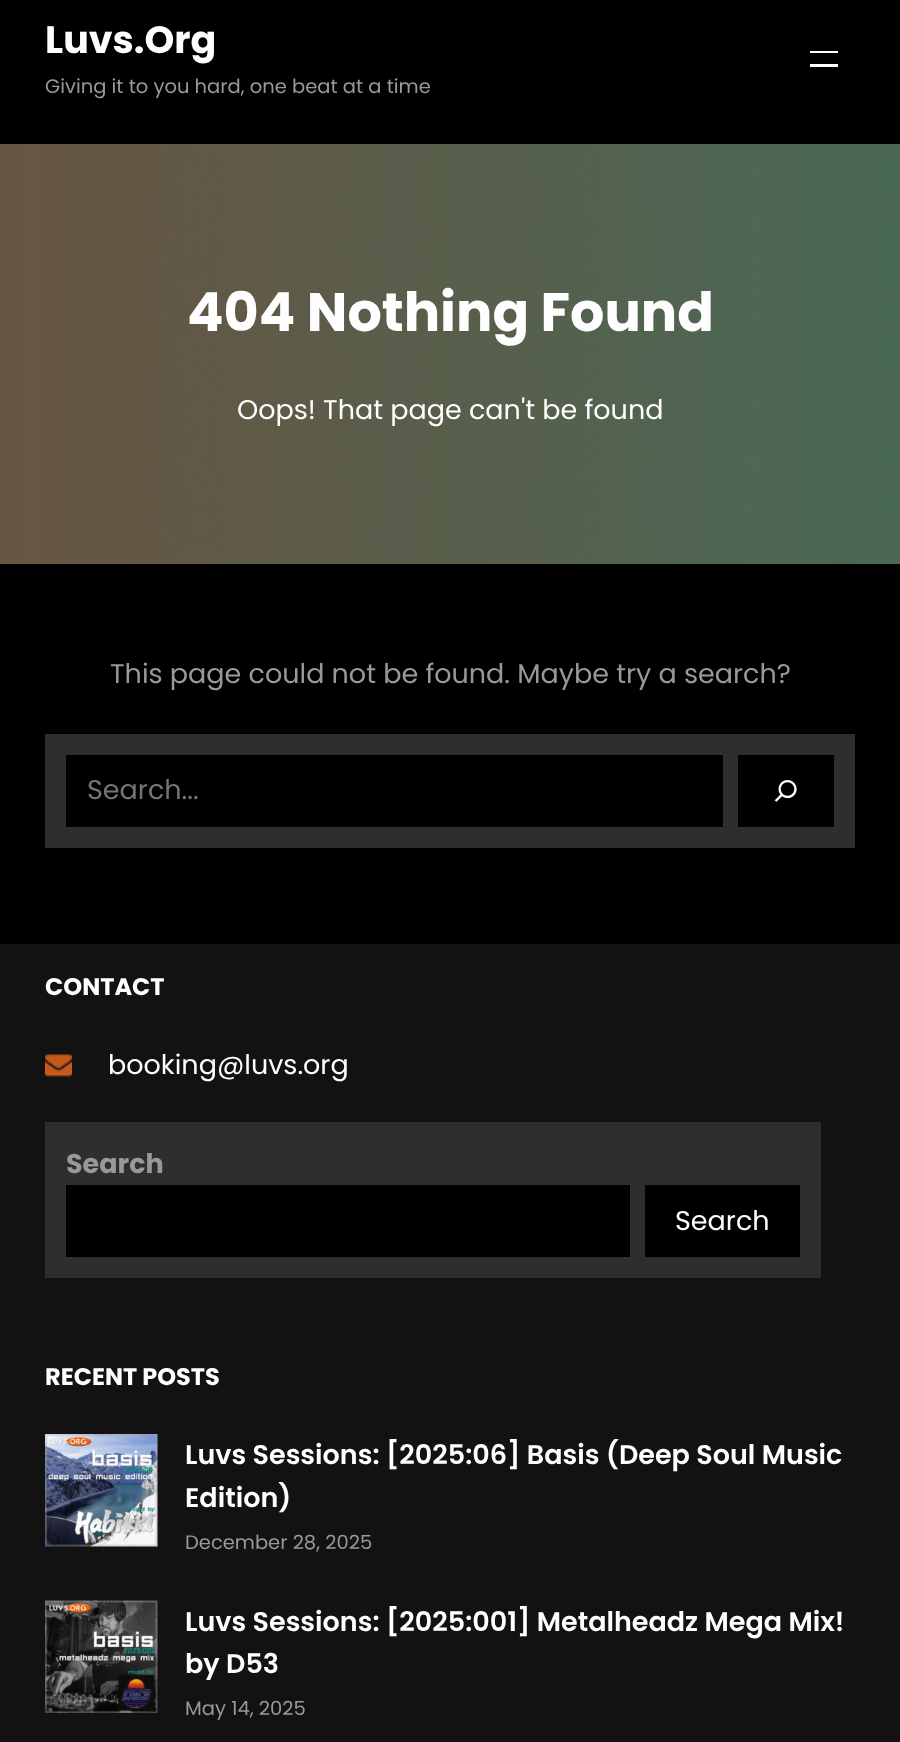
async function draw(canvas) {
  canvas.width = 900;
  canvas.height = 1742;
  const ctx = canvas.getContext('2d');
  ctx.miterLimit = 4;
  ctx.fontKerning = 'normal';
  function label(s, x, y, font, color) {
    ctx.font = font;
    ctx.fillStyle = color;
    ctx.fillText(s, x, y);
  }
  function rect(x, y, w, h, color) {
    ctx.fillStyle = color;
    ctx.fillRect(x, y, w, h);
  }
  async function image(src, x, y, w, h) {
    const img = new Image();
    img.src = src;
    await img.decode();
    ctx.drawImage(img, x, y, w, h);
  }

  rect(0, 0, 900, 1742, '#000');
  label('Luvs.Org', 45, 53, 'bold 38px Poppins', '#fefefe');
  label('Giving it to you hard, one beat at a time', 45, 93, '19.5px Poppins', '#999');
  rect(810, 51, 28, 2, '#fff');
  rect(810, 64, 28, 3, '#fff');
  await image('assets/img1.png', 0, 144, 900, 420);
  label('404 Nothing Found', 187, 331, 'bold 54px Poppins', '#fefefe');
  label('Oops! That page can\'t be found', 237, 419, '27px Poppins', '#fefefe');
  label('This page could not be found. Maybe try a search?', 110, 683, '27px Poppins', '#999');
  rect(45, 734, 810, 114, '#2e2e2e');
  rect(66, 755, 657, 72, '#000');
  label('Search...', 87, 799, '27px Poppins', '#757575');
  rect(738, 755, 96, 72, '#000');
  await image('assets/img2.png', 774, 780, 23, 22);
  rect(0, 944, 900, 798, '#121212');
  label('CONTACT', 45, 995, 'bold 24px Poppins', '#fefefe');
  await image('assets/img3.png', 45, 1054, 27, 24);
  label('booking@luvs.org', 108, 1074, '27px Poppins', '#fefefe');
  rect(45, 1122, 776, 156, '#2e2e2e');
  label('Search', 66, 1173, 'bold 27px Poppins', '#999');
  rect(66, 1185, 564, 72, '#000');
  rect(645, 1185, 155, 72, '#000');
  label('Search', 675, 1230, '27px Poppins', '#fefefe');
  label('RECENT POSTS', 45, 1385, 'bold 24px Poppins', '#fefefe');
  await image('assets/img4.png', 45, 1434, 113, 113);
  label('Luvs Sessions: [2025:06] Basis (Deep Soul Music', 185, 1464, '600 27px Poppins', '#fefefe');
  label('Edition)', 185, 1507, '600 27px Poppins', '#fefefe');
  label('December 28, 2025', 185, 1549, '19.5px Poppins', '#999');
  await image('assets/img5.png', 45, 1600, 113, 113);
  label('Luvs Sessions: [2025:001] Metalheadz Mega Mix!', 185, 1631, '600 27px Poppins', '#fefefe');
  label('by D53', 185, 1673, '600 27px Poppins', '#fefefe');
  label('May 14, 2025', 185, 1715, '19.5px Poppins', '#999');
}

draw(document.querySelector('canvas'));
